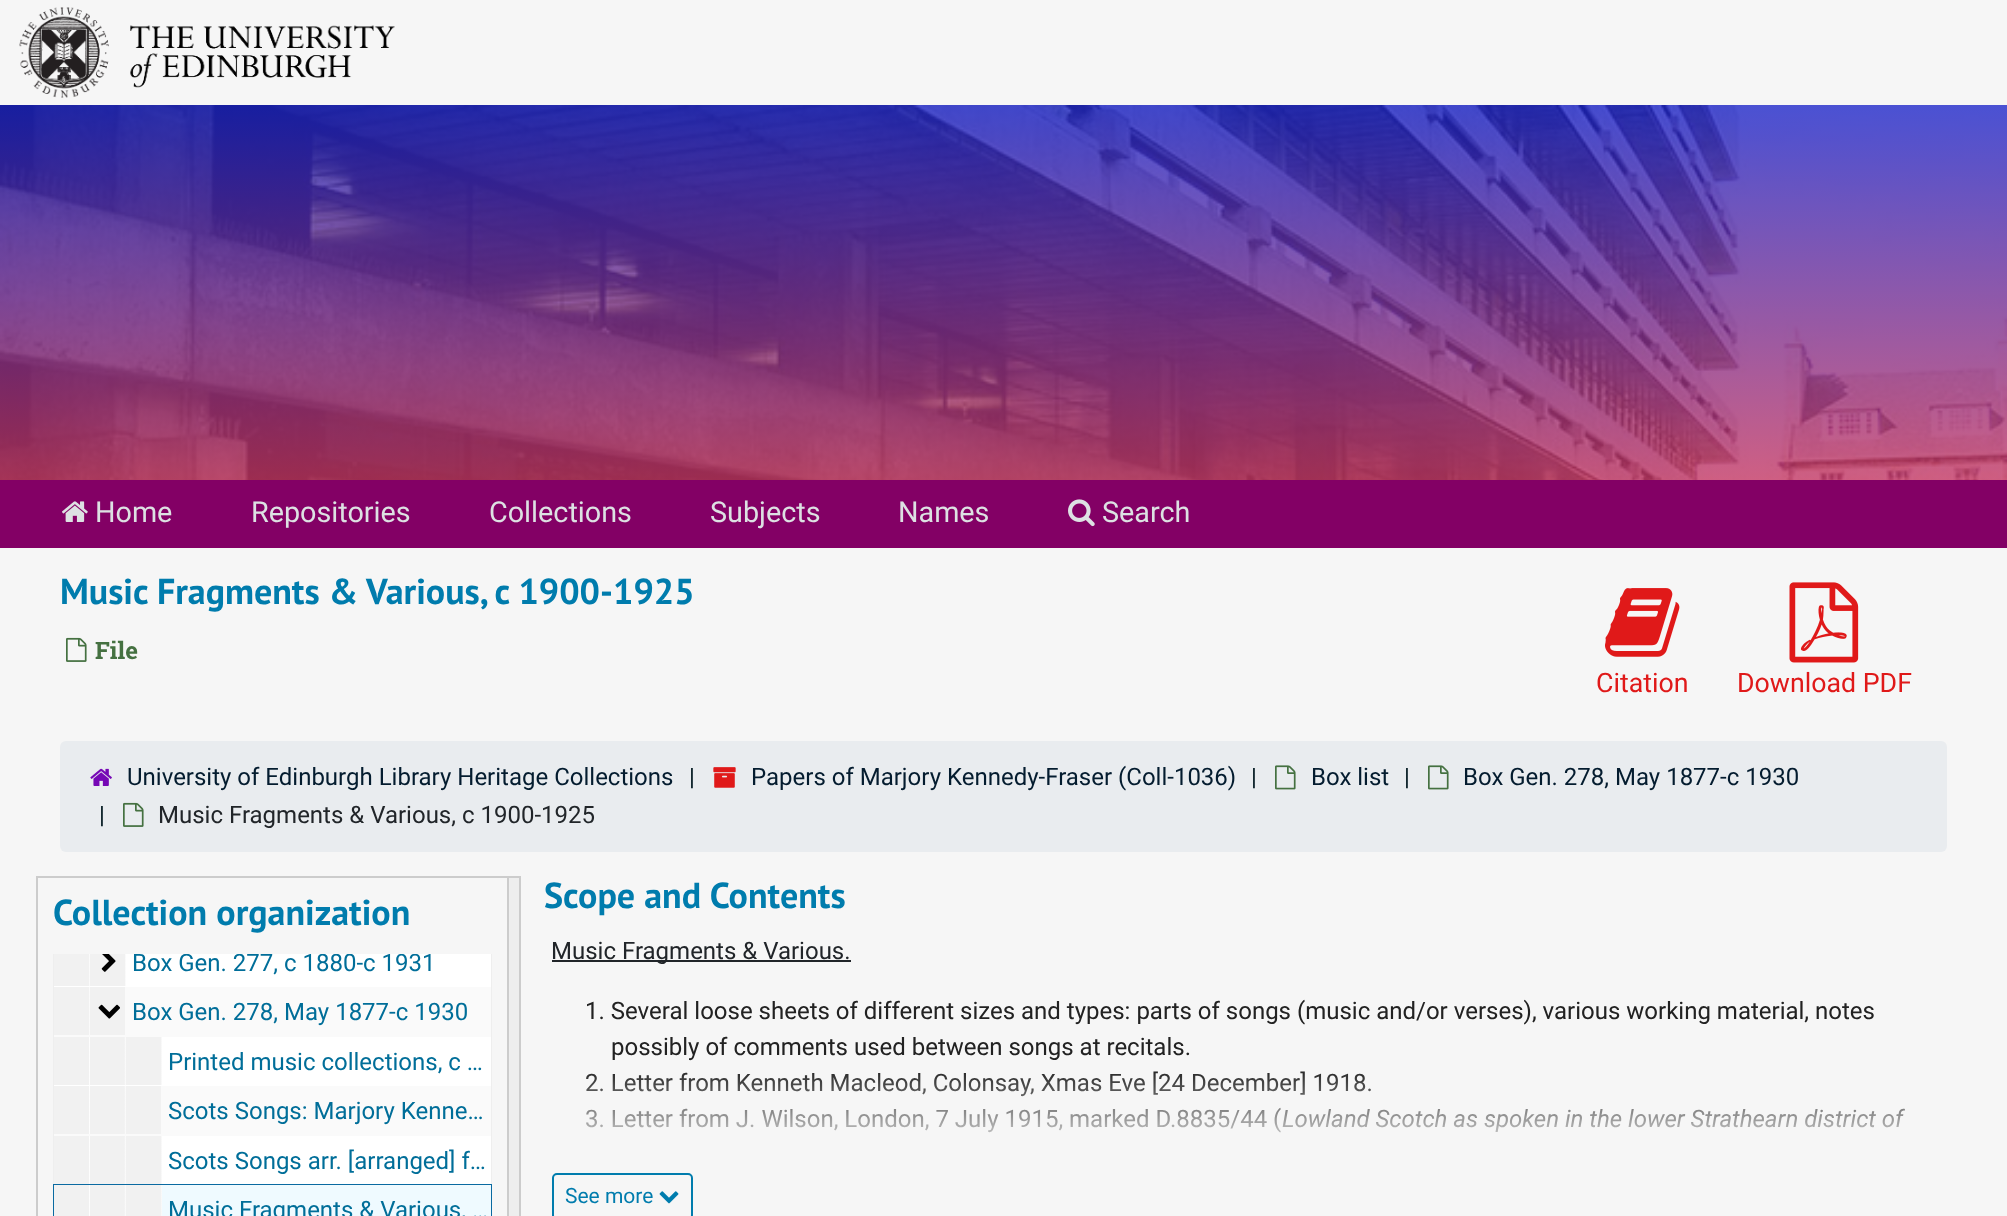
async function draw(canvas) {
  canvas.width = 2007;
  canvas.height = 1216;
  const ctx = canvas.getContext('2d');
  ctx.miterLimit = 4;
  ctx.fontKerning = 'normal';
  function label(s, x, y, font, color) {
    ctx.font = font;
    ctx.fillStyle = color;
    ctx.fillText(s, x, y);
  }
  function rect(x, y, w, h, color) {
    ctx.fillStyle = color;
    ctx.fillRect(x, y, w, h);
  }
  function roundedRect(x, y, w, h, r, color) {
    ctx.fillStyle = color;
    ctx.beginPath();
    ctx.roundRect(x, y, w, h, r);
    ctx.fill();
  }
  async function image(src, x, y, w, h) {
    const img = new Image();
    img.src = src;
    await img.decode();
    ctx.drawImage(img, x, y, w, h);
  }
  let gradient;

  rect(0, 0, 2007, 1216, '#f6f6f6');
  await image('assets/img1.png', 19, 7, 376, 91);
  await image('assets/img2.png', 0, 105, 2007, 375);
  rect(0, 480, 2007, 68, '#830065');
  await image('assets/img3.png', 62, 501, 26, 21);
  label('Home', 95, 522, '28.75px Roboto', '#dde1e3');
  label('Repositories', 251, 522, '28.75px Roboto', '#dde1e3');
  label('Collections', 489, 522, '28.75px Roboto', '#dde1e3');
  label('Subjects', 710, 522, '28.75px Roboto', '#dde1e3');
  label('Names', 898, 522, '28.75px Roboto', '#dde1e3');
  await image('assets/img4.png', 1068, 499, 27, 28);
  label('Search', 1102, 522, '28.75px Roboto', '#dde1e3');
  label('Music Fragments & Various, c 1900-1925', 60, 604, 'bold 36px PT Sans', '#007cad');
  await image('assets/img5.png', 66, 637, 21, 25);
  label('File', 95, 659, 'bold 24px Roboto Slab', '#457141');
  await image('assets/img6.png', 1605, 588, 75, 69);
  label('Citation', 1596, 692, '26.75px Roboto', '#e01919');
  await image('assets/img7.png', 1789, 582, 70, 81);
  label('Download PDF', 1737, 692, '26.75px Roboto', '#e01919');
  roundedRect(60, 741, 1887, 111, 6, '#e9ecef');
  await image('assets/img8.png', 90, 768, 22, 18);
  label('University of Edinburgh Library Heritage Collections', 127, 785, '24px Roboto', '#041c2f');
  label('|', 689, 785, '24px Roboto', '#00171f');
  await image('assets/img9.png', 713, 767, 23, 21);
  label('Papers of Marjory Kennedy-Fraser (Coll-1036)', 751, 785, '24px Roboto', '#041c2f');
  label('|', 1251, 785, '24px Roboto', '#00171f');
  await image('assets/img10.png', 1275, 765, 21, 25);
  label('Box list', 1311, 785, '24px Roboto', '#041c2f');
  label('|', 1404, 785, '24px Roboto', '#00171f');
  await image('assets/img10.png', 1428, 765, 21, 25);
  label('Box Gen. 278, May 1877-c 1930', 1463, 785, '24px Roboto', '#041c2f');
  label('|', 99, 823, '24px Roboto', '#00171f');
  await image('assets/img11.png', 123, 802, 21, 25);
  label('Music Fragments & Various, c 1900-1925', 158, 823, '24px Roboto', '#212529');
  ctx.strokeStyle = '#ccc';
  ctx.lineWidth = 2;
  ctx.strokeRect(37, 877, 483, 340);
  label('Collection organization', 53, 925, 'bold 36px PT Sans', '#007cad');
  rect(509, 878, 10, 338, '#eee');
  rect(507, 878, 2, 338, '#ccc');
  rect(53, 954, 439, 230, '#eee');
  rect(54, 954, 437, 33, '#fff');
  gradient = ctx.createLinearGradient(54, 962, 126, 962);
  gradient.addColorStop(0, '#f1f1f1');
  gradient.addColorStop(0.48, '#f1f1f1');
  gradient.addColorStop(0.5, '#fff');
  gradient.addColorStop(0.5, '#f1f1f1');
  gradient.addColorStop(0.98, '#f1f1f1');
  gradient.addColorStop(1, '#fff');
  ctx.fillStyle = gradient;
  ctx.fillRect(54, 954, 72, 32);
  await image('assets/img12.png', 101, 954, 15, 18);
  ctx.save();
  ctx.beginPath();
  ctx.rect(54, 954, 437, 33);
  ctx.clip();
  label('Box Gen. 277, c 1880-c 1931', 132, 971, '24px Roboto', '#006e99');
  ctx.restore();
  rect(54, 987, 437, 50, '#fafafa');
  gradient = ctx.createLinearGradient(54, 1011, 126, 1011);
  gradient.addColorStop(0, '#f1f1f1');
  gradient.addColorStop(0.48, '#f1f1f1');
  gradient.addColorStop(0.5, '#fff');
  gradient.addColorStop(0.5, '#f1f1f1');
  gradient.addColorStop(0.98, '#f1f1f1');
  gradient.addColorStop(1, '#fff');
  ctx.fillStyle = gradient;
  ctx.fillRect(54, 987, 71, 48);
  await image('assets/img13.png', 98, 1004, 22, 15);
  label('Box Gen. 278, May 1877-c 1930', 132, 1020, '24px Roboto', '#006e99');
  rect(54, 1037, 437, 49, '#fff');
  gradient = ctx.createLinearGradient(54, 1061, 162, 1061);
  gradient.addColorStop(0, '#f1f1f1');
  gradient.addColorStop(0.32, '#f1f1f1');
  gradient.addColorStop(0.33, '#fff');
  gradient.addColorStop(0.33, '#f1f1f1');
  gradient.addColorStop(0.65, '#f1f1f1');
  gradient.addColorStop(0.67, '#fff');
  gradient.addColorStop(0.67, '#f1f1f1');
  gradient.addColorStop(0.99, '#f1f1f1');
  gradient.addColorStop(1, '#fff');
  ctx.fillStyle = gradient;
  ctx.fillRect(54, 1037, 108, 48);
  label('Printed music collections, c …', 168, 1070, '24px Roboto', '#006e99');
  rect(54, 1086, 437, 50, '#fafafa');
  gradient = ctx.createLinearGradient(54, 1110, 162, 1110);
  gradient.addColorStop(0, '#f1f1f1');
  gradient.addColorStop(0.32, '#f1f1f1');
  gradient.addColorStop(0.33, '#fff');
  gradient.addColorStop(0.33, '#f1f1f1');
  gradient.addColorStop(0.65, '#f1f1f1');
  gradient.addColorStop(0.67, '#fff');
  gradient.addColorStop(0.67, '#f1f1f1');
  gradient.addColorStop(0.99, '#f1f1f1');
  gradient.addColorStop(1, '#fff');
  ctx.fillStyle = gradient;
  ctx.fillRect(54, 1086, 107, 48);
  label('Scots Songs: Marjory Kenne…', 168, 1119, '24px Roboto', '#006e99');
  rect(162, 1136, 329, 48, '#fff');
  gradient = ctx.createLinearGradient(54, 1160, 162, 1160);
  gradient.addColorStop(0, '#f1f1f1');
  gradient.addColorStop(0.32, '#f1f1f1');
  gradient.addColorStop(0.33, '#fff');
  gradient.addColorStop(0.33, '#f1f1f1');
  gradient.addColorStop(0.65, '#f1f1f1');
  gradient.addColorStop(0.67, '#fff');
  gradient.addColorStop(0.67, '#f1f1f1');
  gradient.addColorStop(0.99, '#f1f1f1');
  gradient.addColorStop(1, '#fff');
  ctx.fillStyle = gradient;
  ctx.fillRect(54, 1136, 108, 48);
  label('Scots Songs arr. [arranged] f…', 168, 1169, '24px Roboto', '#006e99');
  ctx.strokeStyle = '#0a6aa1';
  ctx.strokeRect(54, 1185, 437, 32);
  rect(162, 1185, 329, 31, '#effaff');
  gradient = ctx.createLinearGradient(54, 1209, 162, 1209);
  gradient.addColorStop(0, '#f1f1f1');
  gradient.addColorStop(0.32, '#f1f1f1');
  gradient.addColorStop(0.33, '#fff');
  gradient.addColorStop(0.33, '#f1f1f1');
  gradient.addColorStop(0.65, '#f1f1f1');
  gradient.addColorStop(0.67, '#fff');
  gradient.addColorStop(0.67, '#f1f1f1');
  gradient.addColorStop(0.99, '#f1f1f1');
  gradient.addColorStop(1, '#fff');
  ctx.fillStyle = gradient;
  ctx.fillRect(54, 1185, 108, 31);
  label('Music Fragments & Various, …', 168, 1218, '24px Roboto', '#006e99');
  label('Scope and Contents', 544, 908, 'bold 36px PT Sans', '#007cad');
  rect(552, 960, 299, 2, '#212529');
  label('Music Fragments & Various.', 551, 959, '24px Roboto', '#212529');
  gradient = ctx.createLinearGradient(1243, 1161, 1243, 993);
  gradient.addColorStop(0, '#fff');
  gradient.addColorStop(0.55, '#222');
  ctx.fillStyle = gradient;
  ctx.fillText('1. Several loose sheets of different sizes and types: parts of songs (music and/or verses), various working material, notes', 585, 1019);
  ctx.fillText('possibly of comments used between songs at recitals.', 611, 1055);
  ctx.fillText('2. Letter from Kenneth Macleod, Colonsay, Xmas Eve [24 December] 1918.', 585, 1091);
  ctx.fillText('3. Letter from J. Wilson, London, 7 July 1915, marked D.8835/44 (', 585, 1127);
  ctx.font = 'italic 24px Roboto';
  ctx.fillText('Lowland Scotch as spoken in the lower Strathearn district of', 1282, 1127);
  ctx.beginPath();
  ctx.roundRect(553, 1174, 139, 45, 4);
  ctx.strokeStyle = '#007cad';
  ctx.stroke();
  label('See more', 565, 1203, '21px Roboto', '#007cad');
  await image('assets/img14.png', 659, 1191, 20, 13);
}

draw(document.querySelector('canvas'));
